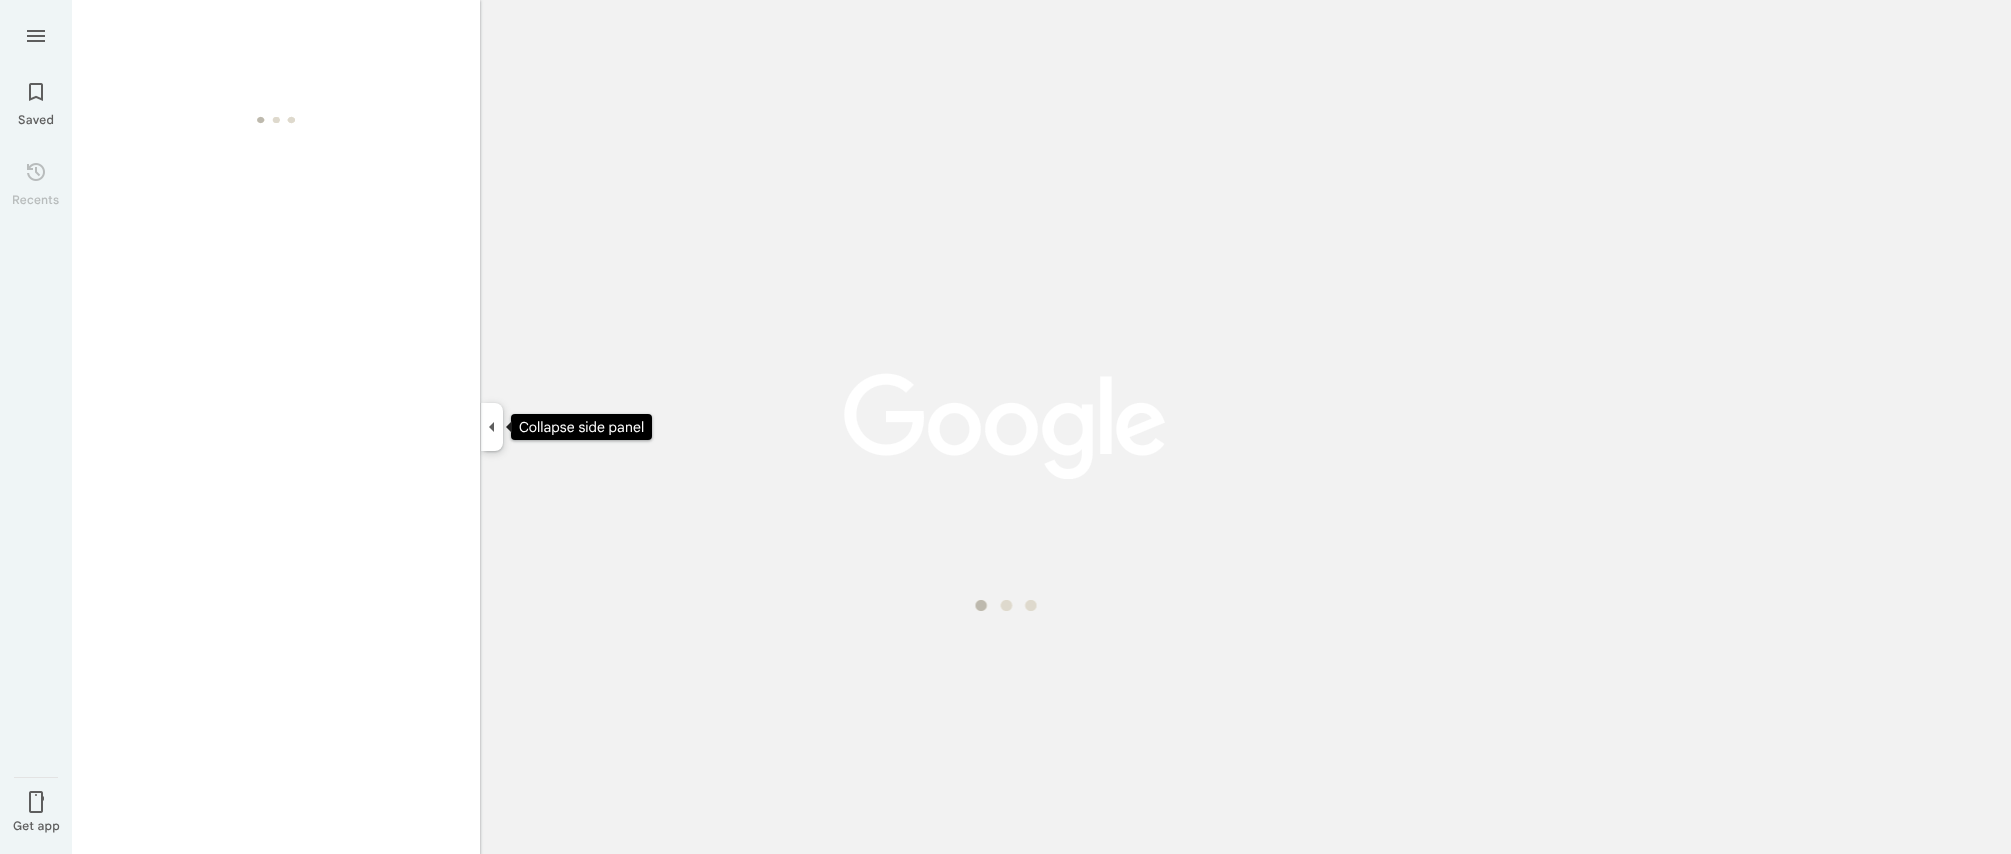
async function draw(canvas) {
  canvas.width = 2011;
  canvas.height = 854;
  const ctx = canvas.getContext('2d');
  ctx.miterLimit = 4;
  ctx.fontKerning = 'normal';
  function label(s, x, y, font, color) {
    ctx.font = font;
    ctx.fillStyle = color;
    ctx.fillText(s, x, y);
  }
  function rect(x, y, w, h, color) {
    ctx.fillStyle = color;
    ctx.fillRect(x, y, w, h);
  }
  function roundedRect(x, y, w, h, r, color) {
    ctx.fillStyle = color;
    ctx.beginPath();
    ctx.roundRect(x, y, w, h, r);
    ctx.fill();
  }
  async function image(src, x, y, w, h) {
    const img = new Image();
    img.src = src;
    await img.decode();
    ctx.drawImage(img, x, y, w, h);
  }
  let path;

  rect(0, 0, 2011, 854, '#f2f2f2');
  ctx.fillStyle = '#3c404326';
  ctx.filter = 'blur(3px)';
  ctx.beginPath();
  ctx.roundRect(478, 403, 27, 52, 10);
  ctx.fill();
  ctx.filter = 'none';
  ctx.fillStyle = '#3c40434d';
  ctx.filter = 'blur(1px)';
  ctx.beginPath();
  ctx.roundRect(480, 404, 23, 48, 8);
  ctx.fill();
  ctx.filter = 'none';
  ctx.fillStyle = '#fff';
  ctx.beginPath();
  ctx.roundRect(480, 403, 23, 48, [0, 8, 8, 0]);
  ctx.fill();
  rect(480, 403, 1, 48, '#e3e3e3');
  ctx.fillStyle = '#3c404326';
  ctx.filter = 'blur(1.5px)';
  ctx.beginPath();
  ctx.rect(71, 0, 410, 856);
  ctx.fill();
  ctx.filter = 'none';
  ctx.fillStyle = '#3c40434d';
  ctx.filter = 'blur(1px)';
  ctx.beginPath();
  ctx.rect(72, 1, 408, 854);
  ctx.fill();
  ctx.filter = 'none';
  rect(0, 0, 72, 854, '#eff5f6');
  await image('assets/img1.png', 27, 30, 18, 12);
  await image('assets/img2.png', 29, 83, 14, 18);
  ctx.letterSpacing = '0.25px';
  label('Saved', 18, 124, '500 12px Google Sans', '#5e5e5e');
  await image('assets/img3.png', 27, 163, 18, 18);
  label('Recents', 12, 204, '500 12px Google Sans', '#b8bcbc');
  rect(14, 777, 44, 1, '#e3e3e3');
  await image('assets/img4.png', 29, 791, 15, 22);
  label('Get app', 13, 830, '500 12px Google Sans', '#5e5e5e');
  rect(72, 0, 408, 854, '#fff');
  await image('assets/img5.png', 257, 116, 38, 8);
  ctx.fillStyle = '#5e5e5e';
  path = new Path2D('M494 432L489 427L494 422Z');
  ctx.fill(path);
  ctx.fillStyle = '#3c404326';
  ctx.filter = 'blur(1.5px)';
  ctx.beginPath();
  ctx.roundRect(510, 414, 143, 28, 5);
  ctx.fill();
  ctx.filter = 'none';
  ctx.fillStyle = '#3c40434d';
  ctx.filter = 'blur(1px)';
  ctx.beginPath();
  ctx.roundRect(511, 415, 141, 26, 4);
  ctx.fill();
  ctx.filter = 'none';
  roundedRect(511, 414, 141, 26, 4, '#000');
  ctx.fillStyle = '#1f1f1f';
  path = new Path2D('M512 421V433L506 427Z');
  ctx.fill(path);
  ctx.letterSpacing = '0.1px';
  label('Collapse side panel', 519, 432, '14px Google Sans', '#fff');
  await image('assets/img6.png', 844, 373, 321, 106);
  await image('assets/img7.png', 975, 600, 62, 11);
}

draw(document.querySelector('canvas'));
